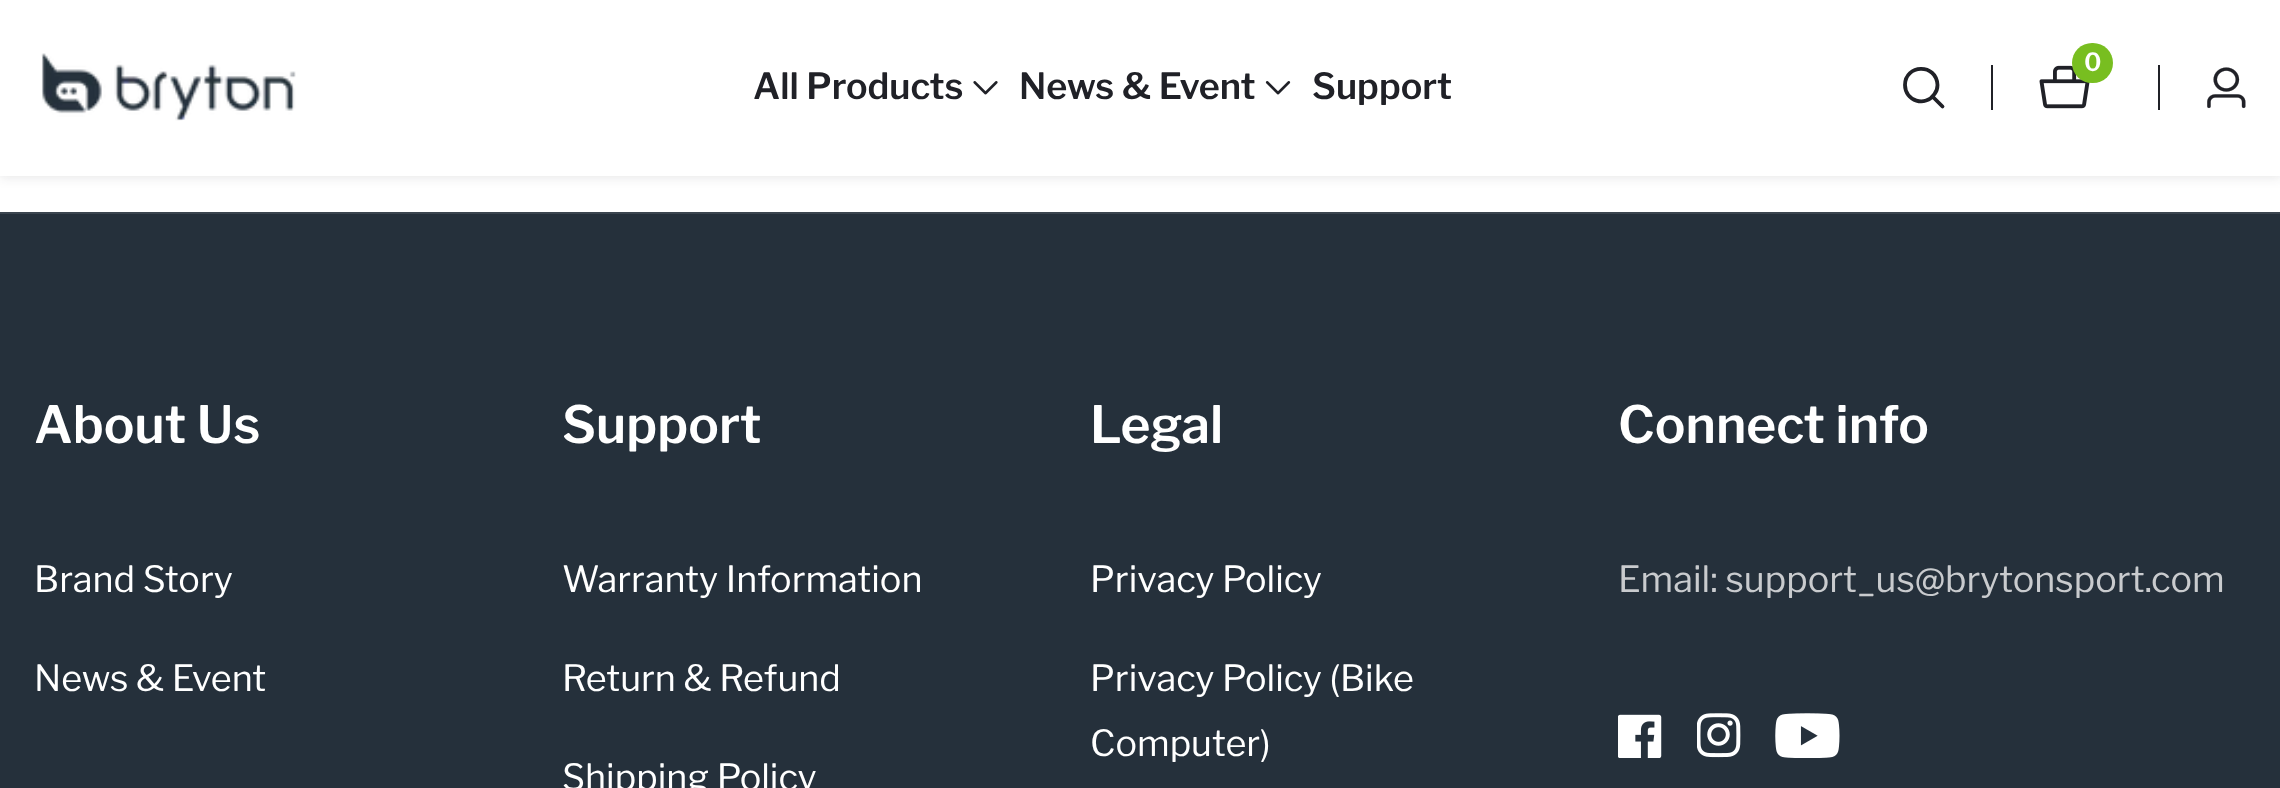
async function draw(canvas) {
  canvas.width = 2280;
  canvas.height = 788;
  const ctx = canvas.getContext('2d');
  ctx.miterLimit = 4;
  ctx.fontKerning = 'normal';
  function label(s, x, y, font, color) {
    ctx.font = font;
    ctx.fillStyle = color;
    ctx.fillText(s, x, y);
  }
  function rect(x, y, w, h, color) {
    ctx.fillStyle = color;
    ctx.fillRect(x, y, w, h);
  }
  function roundedRect(x, y, w, h, r, color) {
    ctx.fillStyle = color;
    ctx.beginPath();
    ctx.roundRect(x, y, w, h, r);
    ctx.fill();
  }
  async function image(src, x, y, w, h) {
    const img = new Image();
    img.src = src;
    await img.decode();
    ctx.drawImage(img, x, y, w, h);
  }
  let path;

  rect(0, 0, 2280, 788, '#fff');
  ctx.fillStyle = '#2021271a';
  ctx.filter = 'blur(5.5px)';
  ctx.beginPath();
  ctx.rect(0, 2, 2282, 176);
  ctx.fill();
  ctx.filter = 'none';
  rect(0, 0, 2280, 176, '#fff');
  await image('assets/img1.png', 41, 53, 255, 68);
  label('All Products', 753, 99, '600 36px Libre Franklin', '#202127');
  await image('assets/img2.png', 973, 81, 25, 14);
  label('News & Event', 1019, 99, '600 36px Libre Franklin', '#202127');
  await image('assets/img3.png', 1265, 81, 26, 14);
  label('Support', 1312, 99, '600 36px Libre Franklin', '#202127');
  rect(1991, 65, 2, 45, '#202127');
  await image('assets/img4.png', 2039, 65, 51, 44);
  roundedRect(2072, 43, 41, 40, 20, '#78be20');
  label('0', 2084, 71, '600 25px Libre Franklin', '#fff');
  path = new Path2D('M1933 97L1942.5 106.5M1905 85C1905 101 1925.5 107.5 1934.5 94C1936.5 91.5 1937.5 88 1937.5 85C1936.5 63 1905 64 1905 85Z');
  ctx.strokeStyle = '#202127';
  ctx.lineWidth = 3.8;
  ctx.lineCap = 'round';
  ctx.lineJoin = 'round';
  ctx.stroke(path);
  rect(2158, 65, 2, 45, '#202127');
  await image('assets/img5.png', 2207, 67, 39, 42);
  rect(0, 214, 2280, 574, '#25303b');
  rect(0, 212, 2280, 2, '#3b454f');
  label('About Us', 34, 443, '600 51.25px Libre Franklin', '#fff');
  label('Brand Story', 34, 592, '36px Libre Franklin', '#fff');
  label('News & Event', 34, 691, '36px Libre Franklin', '#fff');
  label('Support', 562, 443, '600 51.25px Libre Franklin', '#fff');
  label('Warranty Information', 562, 592, '36px Libre Franklin', '#fff');
  label('Return & Refund', 562, 691, '36px Libre Franklin', '#fff');
  label('Shipping Policy', 562, 790, '36px Libre Franklin', '#fff');
  label('Legal', 1090, 443, '600 51.25px Libre Franklin', '#fff');
  label('Privacy Policy', 1090, 592, '36px Libre Franklin', '#fff');
  label('Privacy Policy (Bike', 1090, 691, '36px Libre Franklin', '#fff');
  label('Computer)', 1090, 756, '36px Libre Franklin', '#fff');
  label('Connect info', 1618, 443, '600 51.25px Libre Franklin', '#fff');
  label('Email: support_us@brytonsport.com', 1618, 592, '36px Libre Franklin', '#c9cbce');
  await image('assets/img6.png', 1618, 714, 44, 44);
  await image('assets/img7.png', 1697, 713, 44, 45);
  await image('assets/img8.png', 1775, 713, 65, 45);
}

draw(document.querySelector('canvas'));
